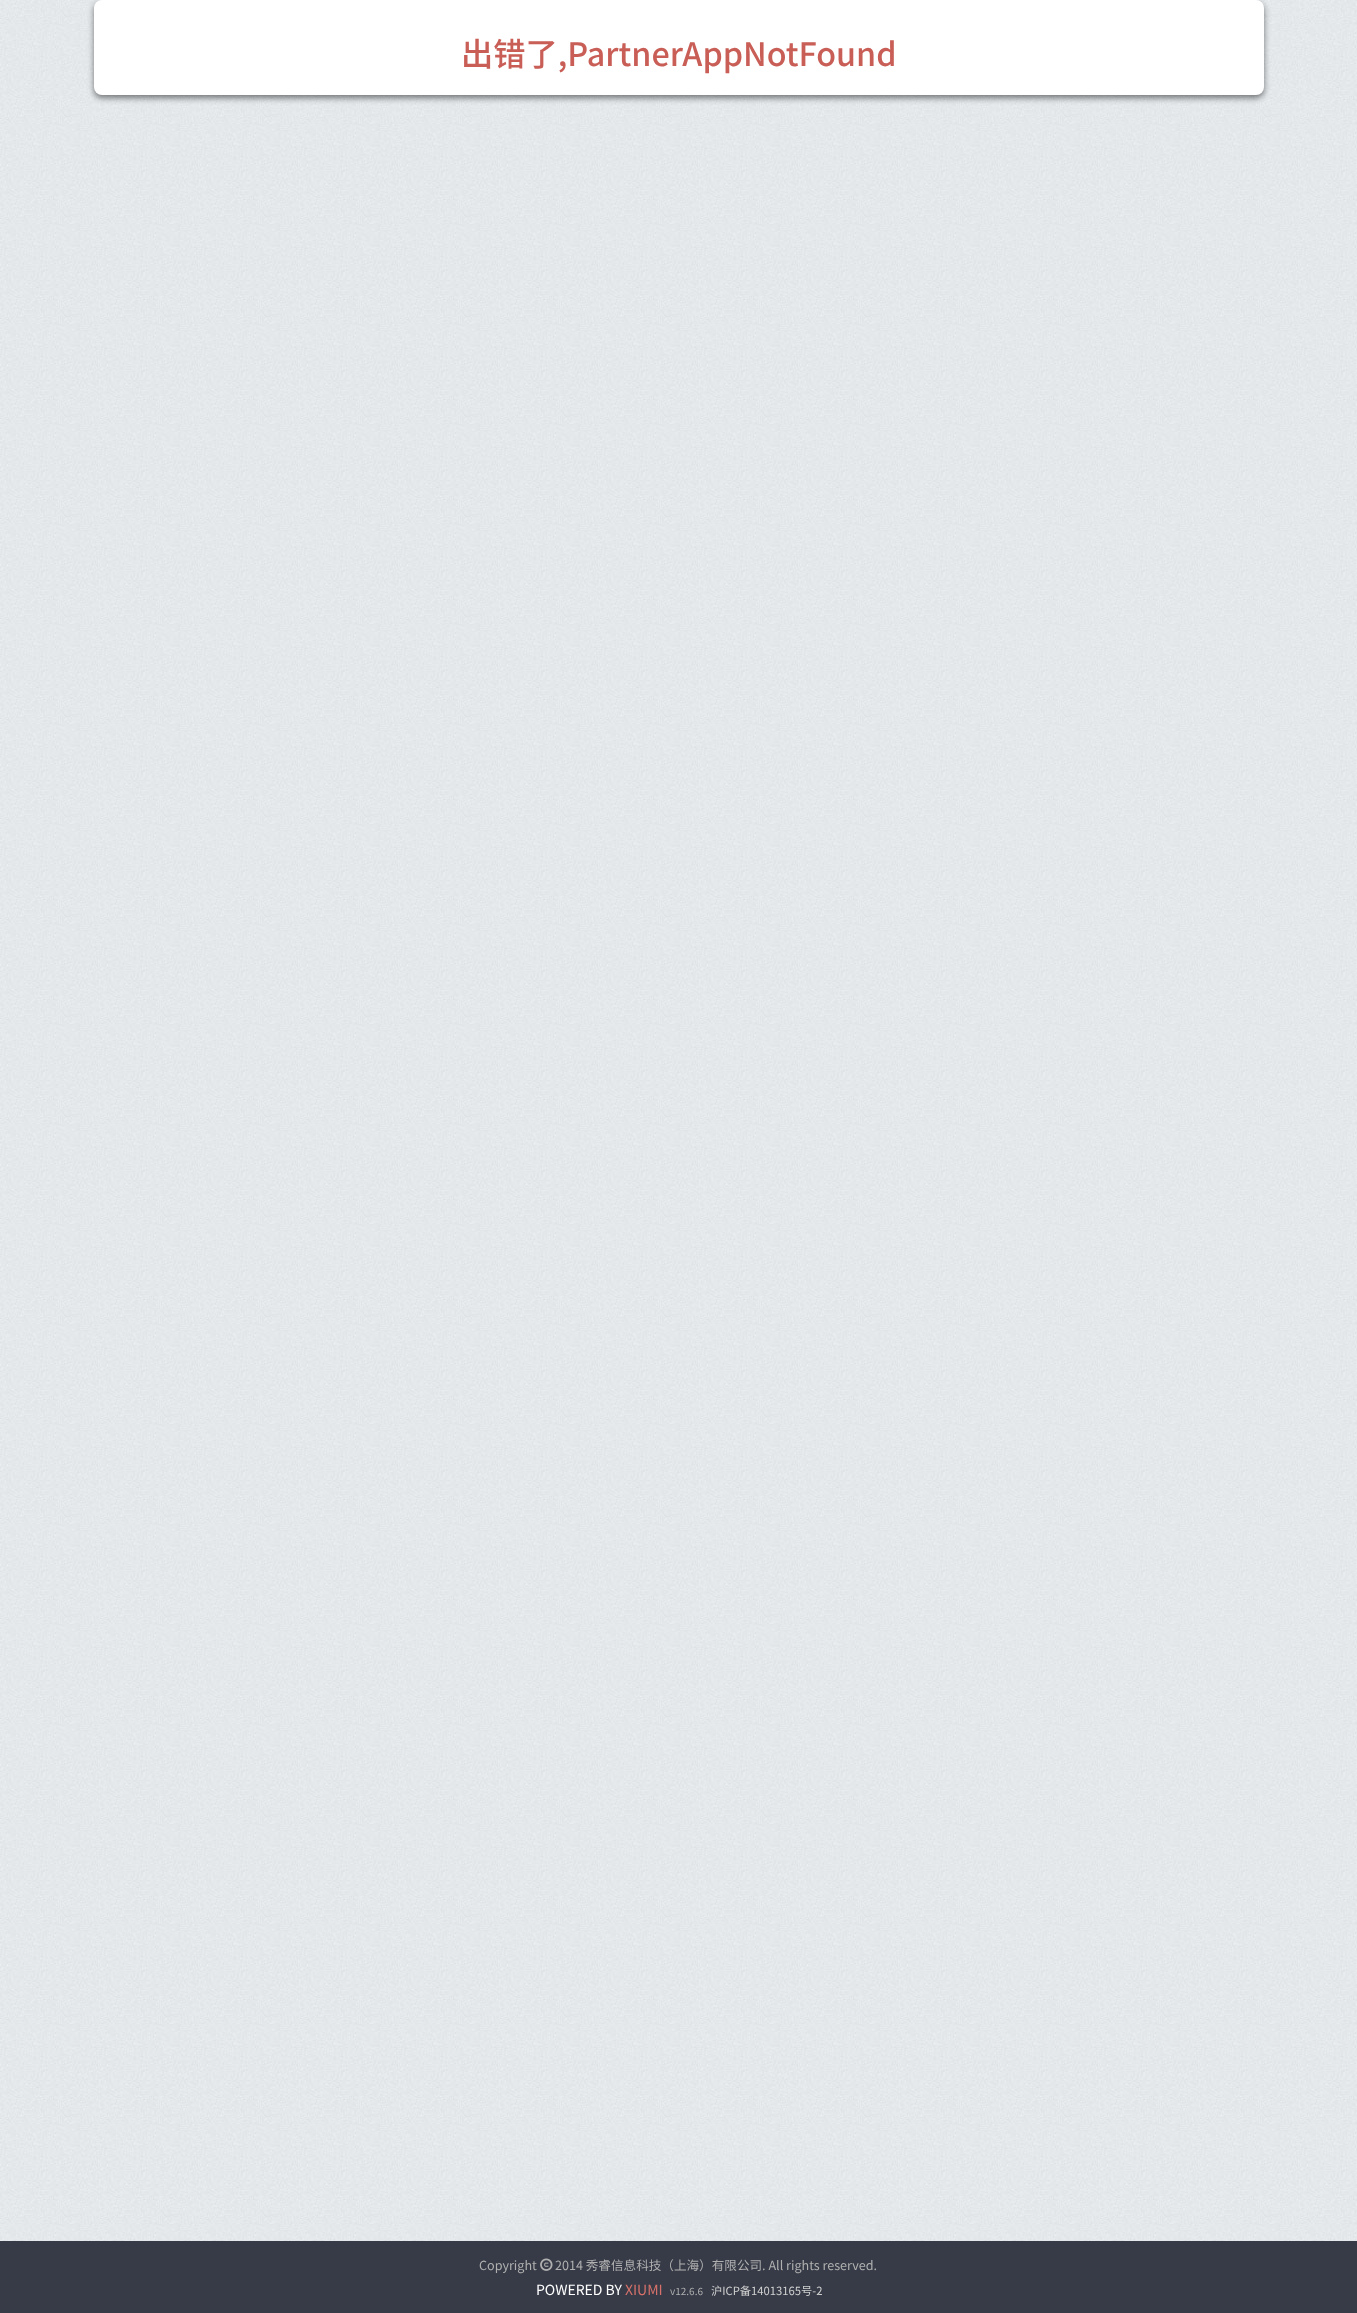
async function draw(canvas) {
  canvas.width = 1357;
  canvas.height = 2313;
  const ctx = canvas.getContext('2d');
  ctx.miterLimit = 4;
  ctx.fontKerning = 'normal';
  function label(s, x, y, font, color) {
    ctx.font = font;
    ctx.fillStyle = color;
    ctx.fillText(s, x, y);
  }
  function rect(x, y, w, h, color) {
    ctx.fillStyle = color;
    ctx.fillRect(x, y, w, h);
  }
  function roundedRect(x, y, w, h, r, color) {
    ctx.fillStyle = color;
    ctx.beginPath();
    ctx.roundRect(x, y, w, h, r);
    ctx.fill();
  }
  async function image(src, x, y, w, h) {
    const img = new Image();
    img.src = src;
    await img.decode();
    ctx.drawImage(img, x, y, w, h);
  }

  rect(0, 0, 1357, 2313, '#fff');
  await image('assets/img1.png', 0, 0, 1357, 2241);
  ctx.fillStyle = '#00000080';
  ctx.filter = 'blur(3px)';
  ctx.beginPath();
  ctx.roundRect(94, 3, 1170, 95, 8);
  ctx.fill();
  ctx.filter = 'none';
  roundedRect(94, 0, 1170, 95, 8, '#fff');
  label('出错了,PartnerAppNotFound', 461, 66, '500 32.25px Noto Sans CJK SC', '#c95e57');
  rect(0, 2241, 1357, 72, '#373b47');
  label('Copyright', 479, 2270, '12.6px Noto Sans CJK SC', '#b0b0b0');
  await image('assets/img2.png', 540, 2258, 13, 13);
  label('2014 秀睿信息科技（上海）有限公司. All rights reserved.', 555, 2270, '12.6px Noto Sans CJK SC', '#b0b0b0');
  label('POWERED BY', 536, 2295, '14px Noto Sans CJK SC', '#fff');
  label('XIUMI', 625, 2295, '14px Noto Sans CJK SC', '#d5716a');
  label('v12.6.6', 670, 2295, '10px Noto Sans CJK SC', '#b0b0b0');
  label('沪ICP备14013165号-2', 711, 2295, '11.25px Noto Sans CJK SC', '#d0d0d0');
}

draw(document.querySelector('canvas'));
